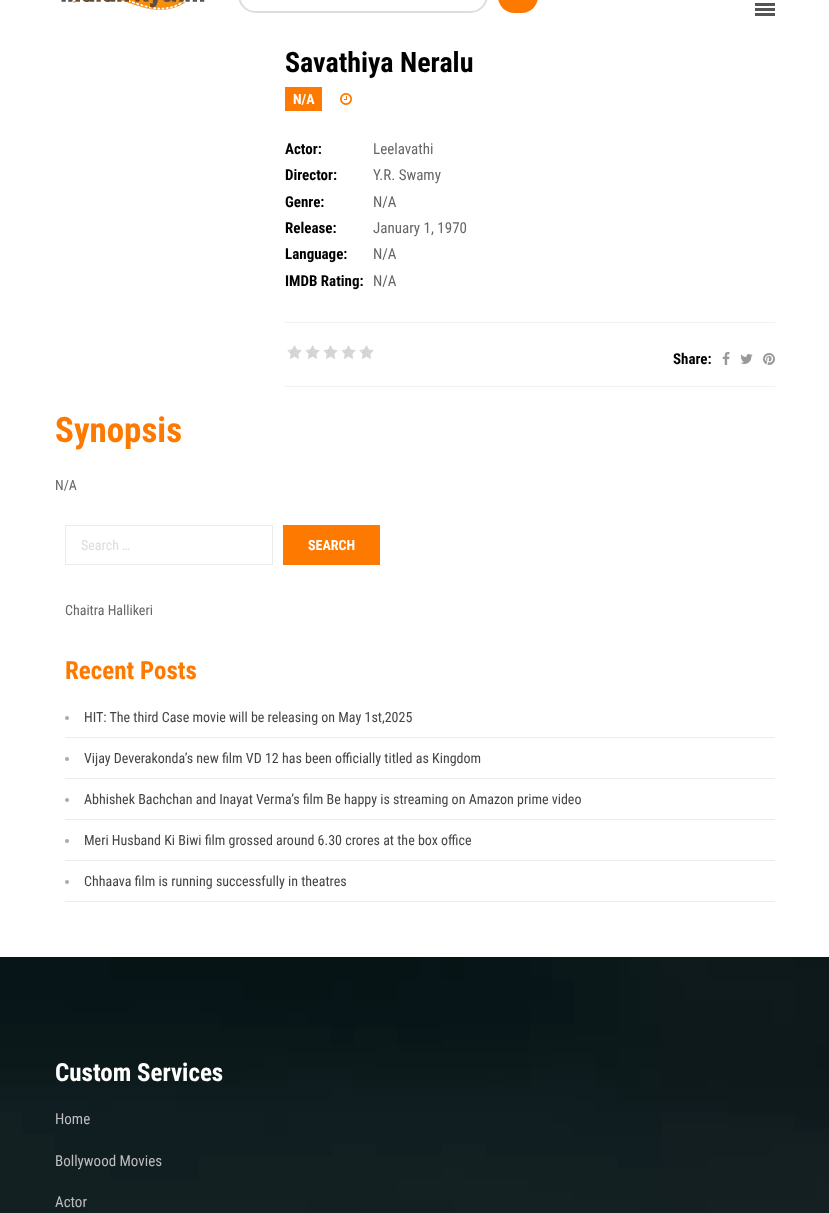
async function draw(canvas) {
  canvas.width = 829;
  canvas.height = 1213;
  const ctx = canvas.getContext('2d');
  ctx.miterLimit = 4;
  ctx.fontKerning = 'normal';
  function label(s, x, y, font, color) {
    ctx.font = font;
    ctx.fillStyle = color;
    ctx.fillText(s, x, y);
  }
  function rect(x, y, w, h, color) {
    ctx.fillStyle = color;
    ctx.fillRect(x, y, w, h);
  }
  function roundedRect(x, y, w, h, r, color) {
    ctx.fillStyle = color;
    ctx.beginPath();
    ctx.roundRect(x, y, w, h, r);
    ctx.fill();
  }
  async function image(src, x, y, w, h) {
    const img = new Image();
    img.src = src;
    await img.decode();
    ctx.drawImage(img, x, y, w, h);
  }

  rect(0, 0, 829, 1213, '#fff');
  await image('assets/img1.png', 61, 0, 144, 10);
  ctx.beginPath();
  ctx.roundRect(239, -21, 248, 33, 19);
  ctx.strokeStyle = '#ddd';
  ctx.lineWidth = 2;
  ctx.stroke();
  roundedRect(498, -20, 40, 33, 20, '#fe7900');
  rect(755, 8, 20, 3, '#555');
  rect(755, 3, 20, 3, '#555');
  rect(755, 13, 20, 3, '#555');
  label('Savathiya Neralu', 285, 72, 'bold 28px Roboto Condensed', '#000');
  rect(285, 87, 37, 24, '#fe7900');
  label('N/A', 293, 104, 'bold 14px Roboto Condensed', '#fff');
  await image('assets/img2.png', 340, 93, 12, 12);
  label('Actor:', 285, 154, 'bold 15px Roboto Condensed', '#000');
  label('Leelavathi', 373, 154, '15px Roboto Condensed', '#666');
  label('Director:', 285, 180, 'bold 15px Roboto Condensed', '#000');
  label('Y.R. Swamy', 373, 180, '15px Roboto Condensed', '#666');
  label('Genre:', 285, 207, 'bold 15px Roboto Condensed', '#000');
  label('N/A', 373, 207, '15px Roboto Condensed', '#666');
  label('Release:', 285, 233, 'bold 15px Roboto Condensed', '#000');
  label('January 1, 1970', 373, 233, '15px Roboto Condensed', '#666');
  label('Language:', 285, 259, 'bold 15px Roboto Condensed', '#000');
  label('N/A', 373, 259, '15px Roboto Condensed', '#666');
  label('IMDB Rating:', 285, 286, 'bold 15px Roboto Condensed', '#000');
  label('N/A', 373, 286, '15px Roboto Condensed', '#666');
  rect(285, 322, 490, 1, '#f1f1f1');
  rect(285, 386, 490, 1, '#f1f1f1');
  await image('assets/img3.png', 287, 345, 87, 14);
  label('Share:', 673, 364, 'bold 15px Roboto Condensed', '#000');
  await image('assets/img4.png', 722, 352, 8, 13);
  await image('assets/img5.png', 740, 354, 13, 10);
  await image('assets/img6.png', 763, 353, 12, 12);
  label('Synopsis', 55, 442, 'bold 35px Roboto Condensed', '#fe7900');
  label('N/A', 55, 490, '14px Roboto Condensed', '#666');
  ctx.strokeStyle = '#ebebeb';
  ctx.lineWidth = 1;
  ctx.strokeRect(65.5, 525.5, 207, 39);
  label('Search …', 81, 550, '14px Roboto Condensed', '#ddd');
  rect(283, 525, 97, 40, '#fe7900');
  label('SEARCH', 308, 550, 'bold 14px Roboto Condensed', '#fff');
  label('Chaitra Hallikeri', 65, 615, '14px Roboto Condensed', '#666');
  label('Recent Posts', 65, 679, 'bold 25px Roboto Condensed', '#fe7900');
  rect(65, 737, 710, 1, '#ececec');
  ctx.fillStyle = '#aaa';
  ctx.beginPath();
  ctx.arc(67, 718, 2, 0, 2 * Math.PI);
  ctx.fill();
  label('HIT: The third Case movie will be releasing on May 1st,2025', 84, 722, '14px Roboto Condensed', '#444');
  rect(65, 778, 710, 1, '#ececec');
  ctx.fillStyle = '#aaa';
  ctx.beginPath();
  ctx.arc(67, 759, 2, 0, 2 * Math.PI);
  ctx.fill();
  label('Vijay Deverakonda’s new film VD 12 has been officially titled as Kingdom', 84, 763, '14px Roboto Condensed', '#444');
  rect(65, 819, 710, 1, '#ececec');
  ctx.fillStyle = '#aaa';
  ctx.beginPath();
  ctx.arc(67, 800, 2, 0, 2 * Math.PI);
  ctx.fill();
  label('Abhishek Bachchan and Inayat Verma’s film Be happy is streaming on Amazon prime video', 84, 804, '14px Roboto Condensed', '#444');
  rect(65, 860, 710, 1, '#ececec');
  ctx.fillStyle = '#aaa';
  ctx.beginPath();
  ctx.arc(67, 841, 2, 0, 2 * Math.PI);
  ctx.fill();
  label('Meri Husband Ki Biwi film grossed around 6.30 crores at the box office', 84, 845, '14px Roboto Condensed', '#444');
  rect(65, 901, 710, 1, '#ececec');
  ctx.fillStyle = '#aaa';
  ctx.beginPath();
  ctx.arc(67, 882, 2, 0, 2 * Math.PI);
  ctx.fill();
  label('Chhaava film is running successfully in theatres', 84, 886, '14px Roboto Condensed', '#444');
  await image('assets/img7.png', 0, 957, 829, 256);
  label('Custom Services', 55, 1081, 'bold 25px Roboto Condensed', '#fff');
  label('Home', 55, 1124, '15px Roboto Condensed', '#bdbdbd');
  label('Bollywood Movies', 55, 1166, '15px Roboto Condensed', '#bdbdbd');
  label('Actor', 55, 1207, '15px Roboto Condensed', '#bdbdbd');
}

draw(document.querySelector('canvas'));
